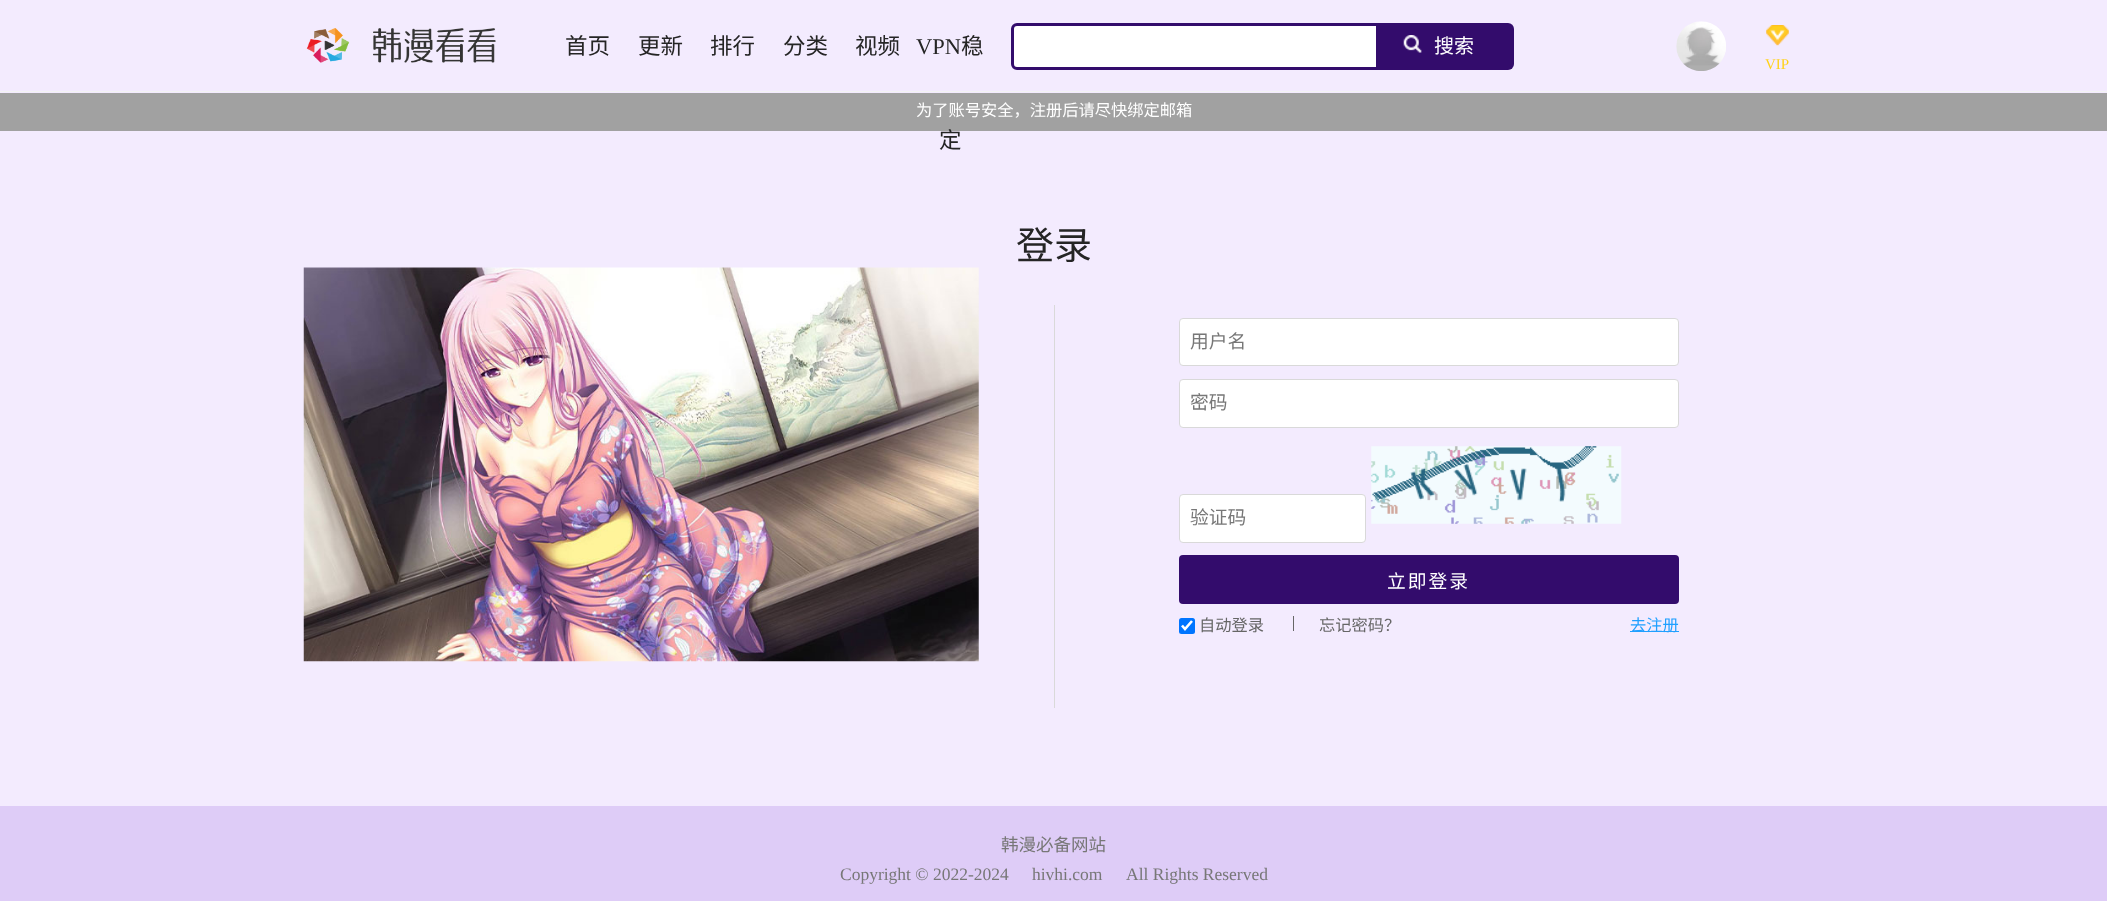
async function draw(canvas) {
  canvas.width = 2107;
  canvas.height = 901;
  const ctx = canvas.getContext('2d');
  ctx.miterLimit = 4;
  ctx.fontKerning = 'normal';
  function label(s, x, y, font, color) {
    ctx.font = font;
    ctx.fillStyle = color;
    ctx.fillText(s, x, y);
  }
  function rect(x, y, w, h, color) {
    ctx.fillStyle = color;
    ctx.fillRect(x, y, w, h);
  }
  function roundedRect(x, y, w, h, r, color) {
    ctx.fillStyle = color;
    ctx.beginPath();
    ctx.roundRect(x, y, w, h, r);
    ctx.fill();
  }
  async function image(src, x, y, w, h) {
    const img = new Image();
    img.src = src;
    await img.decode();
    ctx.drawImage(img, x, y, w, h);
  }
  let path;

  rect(0, 0, 2107, 901, '#f3ebfe');
  rect(0, 91, 2107, 1, '#f3f3f3');
  await image('assets/img1.png', 306, 28, 190, 35);
  label('首页', 565, 54, '22.5px Noto Sans CJK SC', '#252525');
  label('更新', 638, 54, '22.5px Noto Sans CJK SC', '#252525');
  label('排行', 710, 54, '22.5px Noto Sans CJK SC', '#252525');
  label('分类', 783, 54, '22.5px Noto Sans CJK SC', '#252525');
  label('视频', 855, 54, '22.5px Noto Sans CJK SC', '#252525');
  label('VPN', 916, 54, '22.5px Liberation Serif', '#252525');
  label('稳', 961, 54, '22.5px Noto Sans CJK SC', '#252525');
  rect(0, 93, 2107, 38, '#a1a1a1');
  label('定', 939, 148, '22.5px Noto Sans CJK SC', '#252525');
  ctx.fillStyle = '#fff';
  ctx.beginPath();
  ctx.roundRect(1012.5, 24.5, 365, 44, [4.5, 0, 0, 4.5]);
  ctx.fill();
  ctx.strokeStyle = '#330c6c';
  ctx.lineWidth = 3;
  ctx.stroke();
  ctx.fillStyle = '#330c6c';
  ctx.beginPath();
  ctx.roundRect(1379, 23, 135, 47, [0, 6, 6, 0]);
  ctx.fill();
  await image('assets/img2.png', 1403, 35, 19, 18);
  label('搜索', 1434, 53, '20px Noto Sans CJK SC', '#fff');
  await image('assets/img3.png', 1676, 21, 50, 50);
  await image('assets/img4.png', 1766, 25, 23, 21);
  label('VIP', 1765, 69, '15px Liberation Serif', '#ffd21a');
  label('为了账号安全，注册后请尽快绑定邮箱', 916, 116, '16.25px Noto Sans CJK SC', '#fff');
  label('登录', 1016, 259, '38px Noto Sans CJK SC', '#252525');
  await image('assets/img5.png', 303, 267, 676, 395);
  rect(1054, 305, 1, 403, '#d9d9d9');
  ctx.fillStyle = '#fff';
  ctx.beginPath();
  ctx.roundRect(1179.5, 318.5, 499, 47, 3.5);
  ctx.fill();
  ctx.strokeStyle = '#d9d9d9';
  ctx.lineWidth = 1;
  ctx.stroke();
  label('用户名', 1190, 348, '18.75px Noto Sans CJK SC', '#777');
  ctx.fillStyle = '#fff';
  ctx.beginPath();
  ctx.roundRect(1179.5, 379.5, 499, 48, 3.5);
  ctx.fill();
  ctx.stroke();
  label('密码', 1190, 409, '18.75px Noto Sans CJK SC', '#777');
  ctx.fillStyle = '#fff';
  ctx.beginPath();
  ctx.roundRect(1179.5, 494.5, 186, 48, 3.5);
  ctx.fill();
  ctx.stroke();
  label('验证码', 1190, 524, '18.75px Noto Sans CJK SC', '#777');
  await image('assets/img6.png', 1371, 446, 251, 78);
  roundedRect(1179, 555, 500, 49, 4, '#330c6c');
  ctx.letterSpacing = '2px';
  label('立即登录', 1387, 588, '18.75px Noto Sans CJK SC', '#fff');
  roundedRect(1179, 618, 16, 16, 2.5, '#0075ff');
  path = new Path2D('M1182 625.5L1185 629L1192 621');
  ctx.strokeStyle = '#fff';
  ctx.lineWidth = 2.6;
  ctx.stroke(path);
  ctx.letterSpacing = '0px';
  label('自动登录', 1199, 631, '16.25px Noto Sans CJK SC', '#666');
  rect(1293, 616, 1, 15, '#666');
  label('忘记密码？', 1319, 631, '16.25px Noto Sans CJK SC', '#666');
  rect(1630, 631, 49, 1, '#20a0ff');
  label('去注册', 1630, 631, '16.25px Noto Sans CJK SC', '#20a0ff');
  rect(0, 806, 2107, 95, '#deccf7');
  label('韩漫必备网站', 1001, 851, '17.5px Noto Sans CJK SC', '#777');
  label('Copyright © 2022-2024', 840, 880, '17.5px Liberation Serif', '#777');
  label('hivhi.com', 1032, 880, '17.5px Liberation Serif', '#777');
  label('All Rights Reserved', 1126, 880, '17.5px Liberation Serif', '#777');
}

draw(document.querySelector('canvas'));
